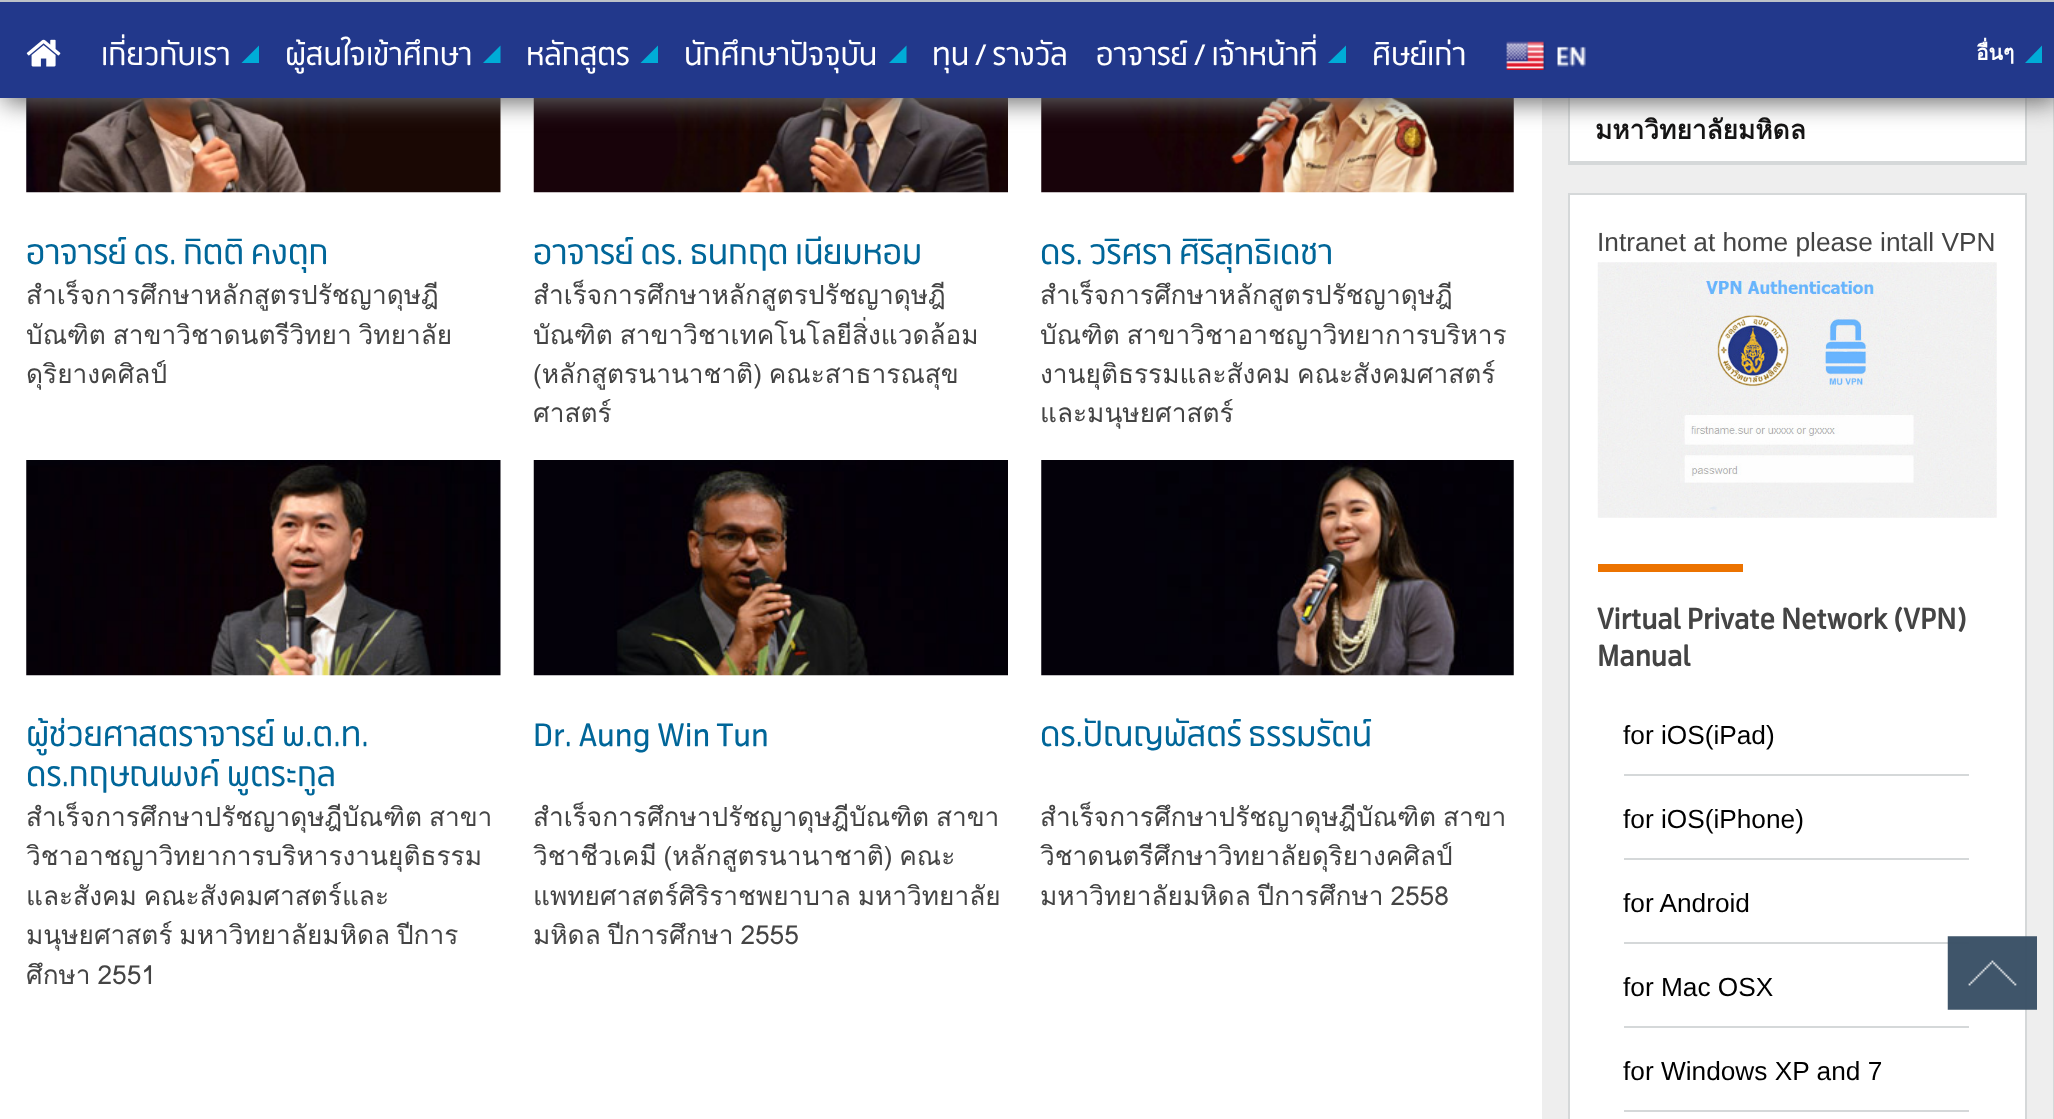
async function draw(canvas) {
  canvas.width = 2054;
  canvas.height = 1119;
  const ctx = canvas.getContext('2d');
  ctx.miterLimit = 4;
  ctx.fontKerning = 'normal';
  function label(s, x, y, font, color) {
    ctx.font = font;
    ctx.fillStyle = color;
    ctx.fillText(s, x, y);
  }
  function rect(x, y, w, h, color) {
    ctx.fillStyle = color;
    ctx.fillRect(x, y, w, h);
  }
  async function image(src, x, y, w, h) {
    const img = new Image();
    img.src = src;
    await img.decode();
    ctx.drawImage(img, x, y, w, h);
  }
  let path;

  rect(0, 0, 2054, 1119, '#fff');
  await image('assets/img3.png', 26, 98, 475, 95);
  await image('assets/img4.png', 533, 98, 475, 95);
  await image('assets/img5.png', 1041, 98, 473, 95);
  rect(1542, 98, 511, 1021, '#eee');
  rect(2053, 98, 1, 1021, '#d5d8d9');
  rect(1570, 98, 455, 63, '#fff');
  ctx.strokeStyle = '#d5d8d9';
  ctx.lineWidth = 2;
  ctx.strokeRect(1569, -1, 457, 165);
  ctx.fillStyle = '#666';
  ctx.filter = 'blur(13px)';
  ctx.beginPath();
  ctx.rect(4, 4, 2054, 98);
  ctx.fill();
  ctx.filter = 'none';
  rect(0, 2, 2054, 96, '#22388b');
  rect(0, 0, 2054, 2, '#bdc2c8');
  await image('assets/img1.png', 26, 39, 35, 28);
  label('เกี่ยวกับเรา', 101, 65, '28px "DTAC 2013"', '#fff');
  ctx.fillStyle = '#00acd7';
  path = new Path2D('M259 63H241.5L259 45.5Z');
  ctx.fill(path);
  label('ผู้สนใจเข้าศึกษา', 285, 65, '28px "DTAC 2013"', '#fff');
  ctx.fillStyle = '#00acd7';
  path = new Path2D('M500.5 63H483L500.5 45.5Z');
  ctx.fill(path);
  label('หลักสูตร', 526, 65, '28px "DTAC 2013"', '#fff');
  ctx.fillStyle = '#00acd7';
  path = new Path2D('M658 63H640.5L658 45.5Z');
  ctx.fill(path);
  label('นักศึกษาปัจจุบัน', 684, 65, '28px "DTAC 2013"', '#fff');
  ctx.fillStyle = '#00acd7';
  path = new Path2D('M906.5 63H889L906.5 45.5Z');
  ctx.fill(path);
  label('ทุน / รางวัล', 932, 65, '28px "DTAC 2013"', '#fff');
  label('อาจารย์ / เจ้าหน้าที่', 1096, 65, '28px "DTAC 2013"', '#fff');
  ctx.fillStyle = '#00acd7';
  path = new Path2D('M1346 63H1328L1346 45.5Z');
  ctx.fill(path);
  label('ศิษย์เก่า', 1372, 65, '28px "DTAC 2013"', '#fff');
  await image('assets/img2.png', 1506, 41, 80, 29);
  label('อื่นๆ', 1976, 60, 'bold 21px Loma', '#fff');
  ctx.fillStyle = '#00acd7';
  path = new Path2D('M2042 63H2025L2042 45.5Z');
  ctx.fill(path);
  label('อาจารย์ ดร. กิตติ คงตุก', 26, 264, '30.75px "DTAC 2013"', '#069');
  label('สำเร็จการศึกษาหลักสูตรปรัชญาดุษฎี', 26, 304, '26.25px Loma', '#444');
  ctx.wordSpacing = '-2px';
  label('บัณฑิต สาขาวิชาดนตรีวิทยา วิทยาลัย', 26, 344, '26.25px Loma', '#444');
  ctx.wordSpacing = '0px';
  label('ดุริยางคศิลป์', 26, 383, '26.25px Loma', '#444');
  label('อาจารย์ ดร. ธนกฤต เนียมหอม', 533, 264, '30.75px "DTAC 2013"', '#069');
  label('สำเร็จการศึกษาหลักสูตรปรัชญาดุษฎี', 533, 304, '26.25px Loma', '#444');
  ctx.wordSpacing = '-2px';
  label('บัณฑิต สาขาวิชาเทคโนโลยีสิ่งแวดล้อม', 533, 344, '26.25px Loma', '#444');
  label('(หลักสูตรนานาชาติ) คณะสาธารณสุข', 533, 383, '26.25px Loma', '#444');
  ctx.wordSpacing = '0px';
  label('ศาสตร์', 533, 422, '26.25px Loma', '#444');
  label('ดร. วริศรา ศิริสุทธิเดชา', 1040, 264, '30.75px "DTAC 2013"', '#069');
  label('สำเร็จการศึกษาหลักสูตรปรัชญาดุษฎี', 1040, 304, '26.25px Loma', '#444');
  ctx.wordSpacing = '-2px';
  label('บัณฑิต สาขาวิชาอาชญาวิทยาการบริหาร', 1040, 344, '26.25px Loma', '#444');
  label('งานยุติธรรมและสังคม คณะสังคมศาสตร์', 1040, 383, '26.25px Loma', '#444');
  ctx.wordSpacing = '0px';
  label('และมนุษยศาสตร์', 1040, 422, '26.25px Loma', '#444');
  await image('assets/img6.png', 26, 460, 475, 216);
  label('ผู้ช่วยศาสตราจารย์ พ.ต.ท.', 26, 746, '30.75px "DTAC 2013"', '#069');
  label('ดร.กฤษณพงค์ พูตระกูล', 26, 786, '30.75px "DTAC 2013"', '#069');
  ctx.wordSpacing = '-2px';
  label('สำเร็จการศึกษาปรัชญาดุษฎีบัณฑิต สาขา', 26, 826, '26.25px Loma', '#444');
  ctx.wordSpacing = '0px';
  label('วิชาอาชญาวิทยาการบริหารงานยุติธรรม', 26, 865, '26.25px Loma', '#444');
  ctx.wordSpacing = '-2px';
  label('และสังคม คณะสังคมศาสตร์และ', 26, 905, '26.25px Loma', '#444');
  label('มนุษยศาสตร์ มหาวิทยาลัยมหิดล ปีการ', 26, 944, '26.25px Loma', '#444');
  label('ศึกษา 2551', 26, 984, '26.25px Loma', '#444');
  await image('assets/img7.png', 533, 460, 475, 216);
  ctx.wordSpacing = '0px';
  label('Dr. Aung Win Tun', 533, 746, '30.75px "DTAC 2013"', '#069');
  ctx.wordSpacing = '-2px';
  label('สำเร็จการศึกษาปรัชญาดุษฎีบัณฑิต สาขา', 533, 826, '26.25px Loma', '#444');
  label('วิชาชีวเคมี (หลักสูตรนานาชาติ) คณะ', 533, 865, '26.25px Loma', '#444');
  label('แพทยศาสตร์ศิริราชพยาบาล มหาวิทยาลัย', 533, 905, '26.25px Loma', '#444');
  label('มหิดล ปีการศึกษา 2555', 533, 944, '26.25px Loma', '#444');
  await image('assets/img8.png', 1041, 460, 473, 216);
  ctx.wordSpacing = '0px';
  label('ดร.ปัณญพัสตร์ ธรรมรัตน์', 1040, 746, '30.75px "DTAC 2013"', '#069');
  ctx.wordSpacing = '-2px';
  label('สำเร็จการศึกษาปรัชญาดุษฎีบัณฑิต สาขา', 1040, 826, '26.25px Loma', '#444');
  ctx.wordSpacing = '0px';
  label('วิชาดนตรีศึกษาวิทยาลัยดุริยางคศิลป์', 1040, 865, '26.25px Loma', '#444');
  ctx.wordSpacing = '-2px';
  label('มหาวิทยาลัยมหิดล ปีการศึกษา 2558', 1040, 905, '26.25px Loma', '#444');
  rect(1570, 161, 455, 2, '#d5d8d9');
  ctx.wordSpacing = '0px';
  label('มหาวิทยาลัยมหิดล', 1595, 139, 'bold 26.25px Loma', '#161515');
  ctx.fillStyle = '#fff';
  ctx.beginPath();
  ctx.rect(1569, 194, 457, 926);
  ctx.fill();
  ctx.stroke();
  label('Intranet at home please intall VPN', 1597, 251, '26.25px Liberation Sans', '#444');
  await image('assets/img9.png', 1597, 262, 400, 256);
  rect(1598, 564, 145, 8, '#ec7300');
  label('Virtual Private Network (VPN)', 1597, 629, 'bold 28px "DTAC 2013"', '#444');
  label('Manual', 1597, 666, 'bold 28px "DTAC 2013"', '#444');
  label('for iOS(iPad)', 1623, 744, '26.25px Liberation Sans', '#000');
  rect(1624, 774, 345, 2, '#d5d8d9');
  label('for iOS(iPhone)', 1623, 828, '26.25px Liberation Sans', '#000');
  rect(1624, 858, 345, 2, '#d5d8d9');
  label('for Android', 1623, 912, '26.25px Liberation Sans', '#000');
  rect(1624, 942, 345, 2, '#d5d8d9');
  label('for Mac OSX', 1623, 996, '26.25px Liberation Sans', '#000');
  rect(1624, 1026, 345, 2, '#d5d8d9');
  label('for Windows XP and 7', 1623, 1080, '26.25px Liberation Sans', '#000');
  rect(1624, 1110, 345, 2, '#d5d8d9');
  await image('assets/img10.png', 1947, 936, 90, 74);
}

draw(document.querySelector('canvas'));
